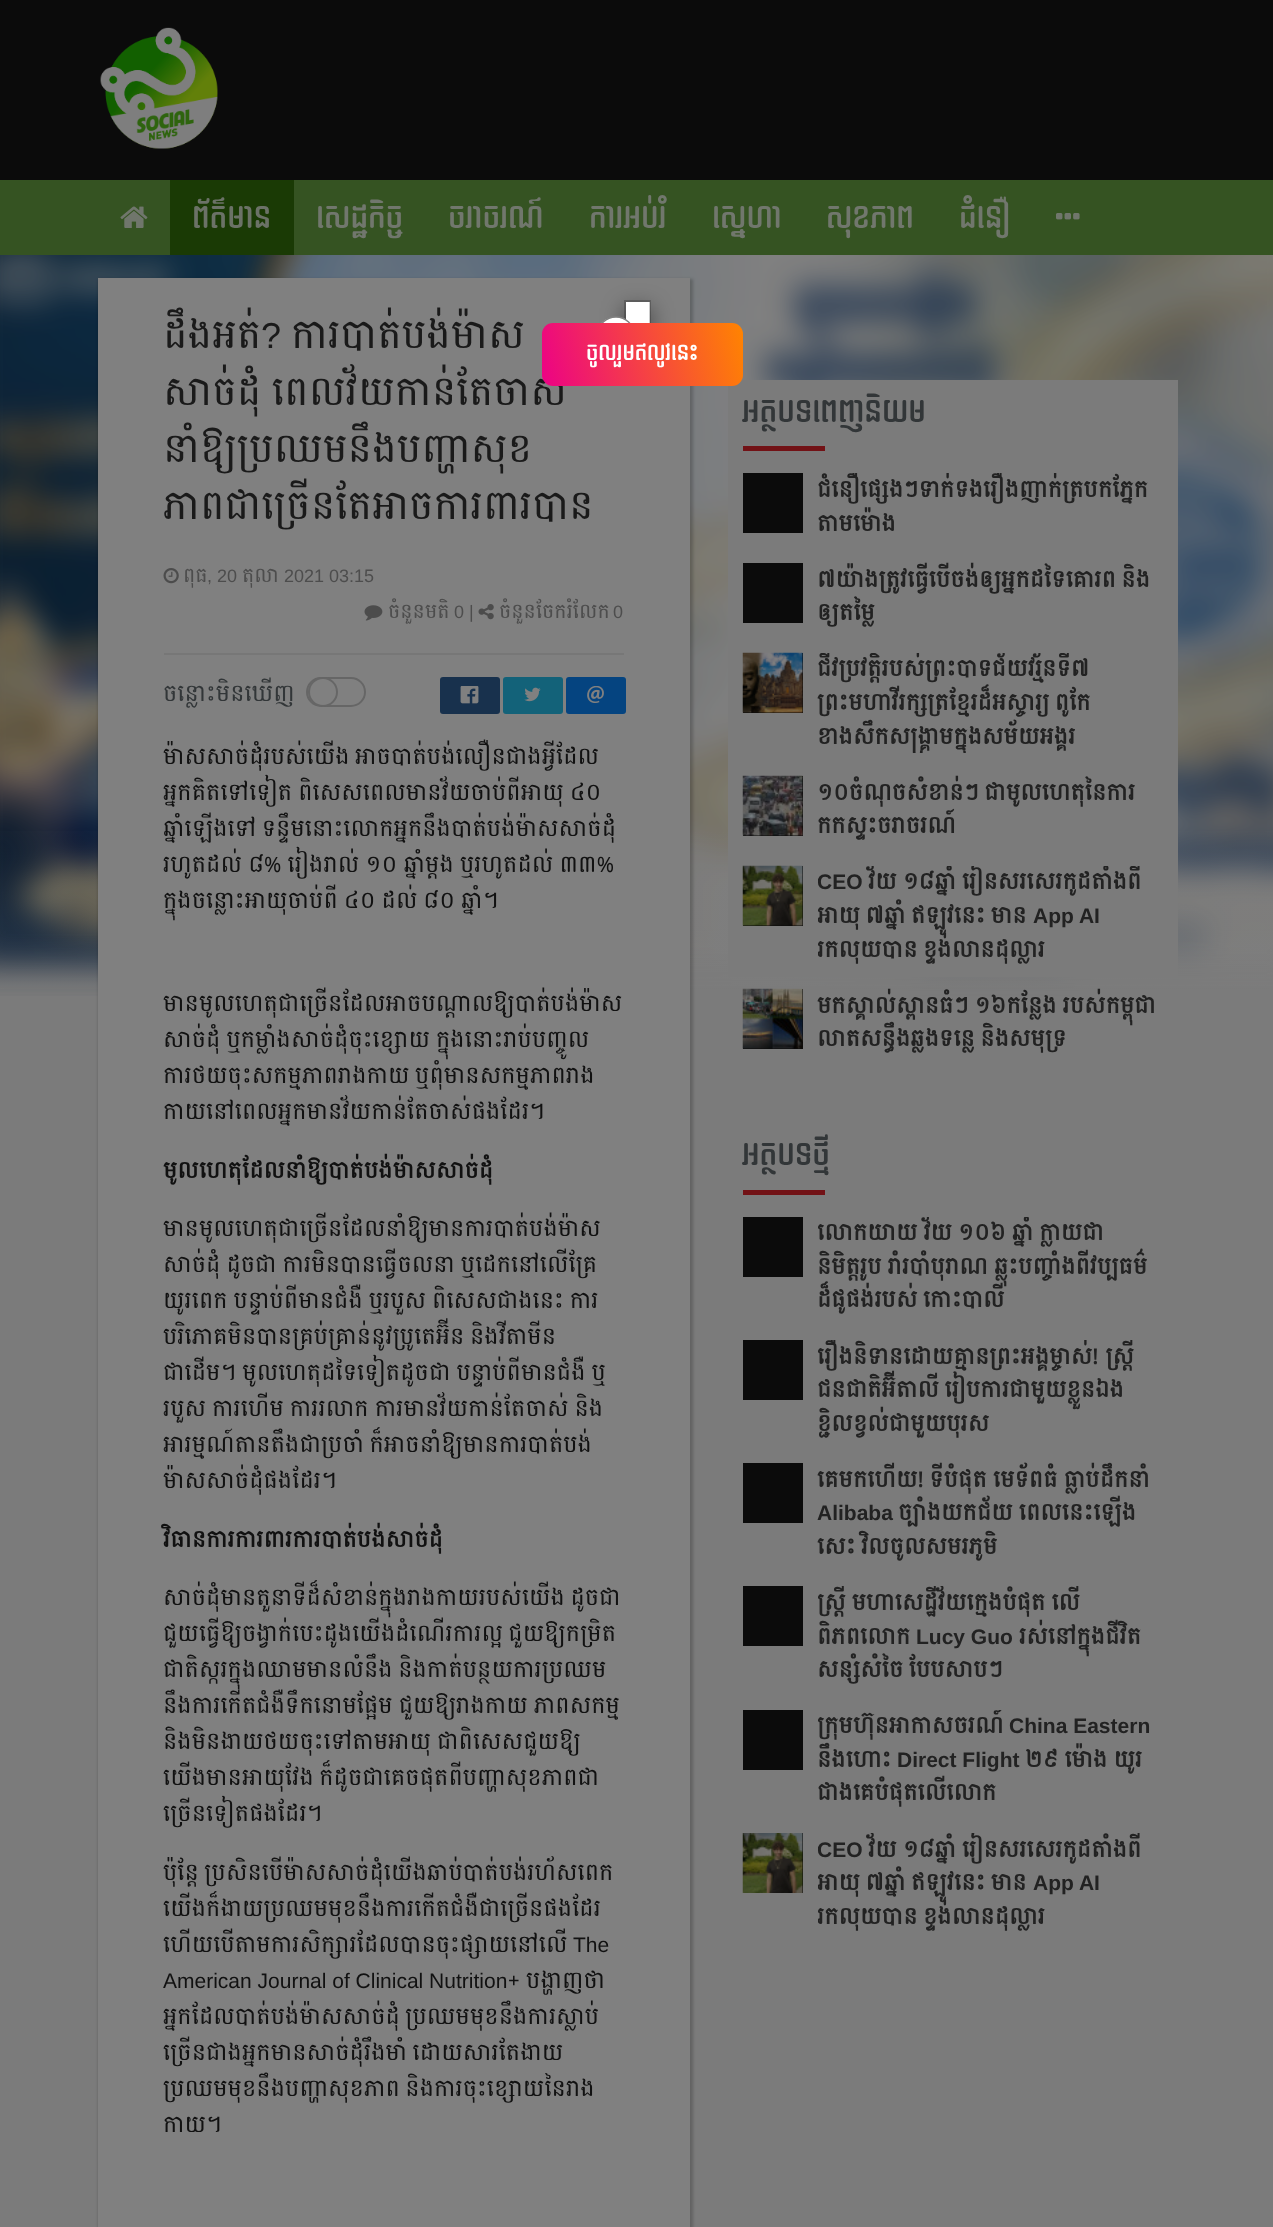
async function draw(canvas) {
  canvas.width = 1273;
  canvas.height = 2227;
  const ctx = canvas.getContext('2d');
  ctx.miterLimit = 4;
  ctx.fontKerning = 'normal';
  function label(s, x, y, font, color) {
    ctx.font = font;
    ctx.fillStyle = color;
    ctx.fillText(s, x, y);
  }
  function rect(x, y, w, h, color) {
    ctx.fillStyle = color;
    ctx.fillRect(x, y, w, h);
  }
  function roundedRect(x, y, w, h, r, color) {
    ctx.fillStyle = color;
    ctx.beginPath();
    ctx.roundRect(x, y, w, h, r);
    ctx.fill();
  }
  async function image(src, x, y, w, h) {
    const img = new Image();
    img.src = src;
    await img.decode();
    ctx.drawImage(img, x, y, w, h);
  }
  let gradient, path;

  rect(0, 0, 1273, 2227, '#7b7b7b');
  rect(0, 0, 1273, 180, '#0b0b0b');
  await image('assets/img1.png', 100, 27, 118, 122);
  rect(0, 180, 1273, 75, '#355322');
  await image('assets/img2.png', 120, 206, 28, 22);
  rect(170, 180, 124, 75, '#1a3a05');
  label('ព័ត៌មាន', 192, 228, '30px Dangrek', '#6b7267');
  label('សេដ្ឋកិច្ច', 316, 228, '30px Dangrek', '#71776d');
  label('ចរាចរណ៍', 448, 228, '30px Dangrek', '#71776d');
  label('ការអប់រំ', 589, 228, '30px Dangrek', '#71776d');
  label('ស្នេហា', 712, 228, '30px Dangrek', '#71776d');
  label('សុខភាព', 826, 228, '30px Dangrek', '#71776d');
  label('ជំនឿ', 959, 228, '30px Dangrek', '#71776d');
  await image('assets/img3.png', 1056, 213, 24, 7);
  await image('assets/img4.png', 0, 255, 1273, 741);
  gradient = ctx.createLinearGradient(637, 818, 637, 1418);
  gradient.addColorStop(0, '#7b7b7b00');
  gradient.addColorStop(1, '#7b7b7b');
  ctx.fillStyle = gradient;
  ctx.fillRect(0, 831, 1273, 158);
  ctx.fillStyle = '#00000033';
  ctx.filter = 'blur(1.5px)';
  ctx.beginPath();
  ctx.rect(98, 279, 595, 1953);
  ctx.fill();
  ctx.filter = 'none';
  rect(98, 278, 592, 1949, '#808080');
  rect(164, 653, 460, 2, '#777');
  label('ដឹងអត់', 163, 348, '36px Battambang', '#1a1a1a');
  label('?', 261, 348, '36px Liberation Sans', '#1a1a1a');
  label('ការបាត់បង់ម៉ាស', 291, 348, '36px Battambang', '#1a1a1a');
  ctx.wordSpacing = '1px';
  label('សាច់ដុំ ពេលវ័យកាន់តែចាស់', 163, 405, '36px Battambang', '#1a1a1a');
  ctx.wordSpacing = '0px';
  label('នាំឱ្យប្រឈមនឹងបញ្ហាសុខ', 163, 462, '36px Battambang', '#1a1a1a');
  label('ភាពជាច្រើនតែអាចការពារបាន', 163, 519, '36px Battambang', '#1a1a1a');
  await image('assets/img5.png', 163, 568, 16, 16);
  label('ពុធ', 183, 582, '18px Battambang', '#4d4d4d');
  label(', 20', 207, 582, '18px Liberation Sans', '#4d4d4d');
  label('តុលា', 242, 582, '18px Battambang', '#4d4d4d');
  label('2021 03:15', 284, 582, '18px Liberation Sans', '#4d4d4d');
  await image('assets/img6.png', 364, 605, 19, 16);
  label('ចំនួនមតិ', 388, 618, '18px Battambang', '#4d4d4d');
  label('0 |', 454, 618, '18px Liberation Sans', '#4d4d4d');
  await image('assets/img7.png', 478, 604, 16, 16);
  label('ចំនួនចែករំលែក', 499, 618, '18px Battambang', '#4d4d4d');
  label('0', 613, 618, '18px Liberation Sans', '#4d4d4d');
  label('ចន្លោះមិនឃើញ', 163, 701, '21px Battambang', '#323638');
  ctx.beginPath();
  ctx.roundRect(307, 678, 58, 28, 14);
  ctx.strokeStyle = '#666';
  ctx.lineWidth = 2;
  ctx.stroke();
  ctx.fillStyle = '#808080';
  ctx.beginPath();
  ctx.arc(323, 692, 14, 0, 2 * Math.PI);
  ctx.fill();
  ctx.stroke();
  roundedRect(440, 677, 60, 37, 3, '#18314d');
  await image('assets/img8.png', 460, 686, 19, 18);
  roundedRect(503, 677, 60, 37, 3, '#136279');
  await image('assets/img9.png', 524, 687, 17, 15);
  roundedRect(566, 677, 60, 37, 3, '#054480');
  await image('assets/img10.png', 587, 686, 17, 17);
  label('ម៉ាសសាច់ដុំរបស់យើង អាចបាត់បង់លឿនជាងអ្វីដែល', 163, 764, '21px Battambang', '#111');
  ctx.wordSpacing = '0.5px';
  label('អ្នកគិតទៅទៀត ពិសេសពេលមានវ័យចាប់ពីអាយុ ៤០', 163, 800, '21px Battambang', '#111');
  ctx.wordSpacing = '0px';
  label('ឆ្នាំឡើងទៅ ទន្ទឹមនោះលោកអ្នកនឹងបាត់បង់ម៉ាសសាច់ដុំ', 163, 836, '21px Battambang', '#111');
  ctx.wordSpacing = '0.75px';
  label('រហូតដល់ ៨% រៀងរាល់ ១០ ឆ្នាំម្តង ឬរហូតដល់ ៣៣%', 163, 872, '21px Battambang', '#111');
  ctx.wordSpacing = '0.5px';
  label('ក្នុងចន្លោះអាយុចាប់ពី ៤០ ដល់ ៨០ ឆ្នាំ។', 163, 908, '21px Battambang', '#111');
  ctx.wordSpacing = '0px';
  label('មានមូលហេតុជាច្រើនដែលអាចបណ្តាលឱ្យបាត់បង់ម៉ាស', 163, 1011, '21px Battambang', '#111');
  ctx.wordSpacing = '0.5px';
  label('សាច់ដុំ ឬកម្លាំងសាច់ដុំចុះខ្សោយ ក្នុងនោះរាប់បញ្ចូល', 163, 1047, '21px Battambang', '#111');
  ctx.wordSpacing = '0px';
  label('ការថយចុះសកម្មភាពរាងកាយ ឬពុំមានសកម្មភាពរាង', 163, 1083, '21px Battambang', '#111');
  label('កាយនៅពេលអ្នកមានវ័យកាន់តែចាស់ផងដែរ។', 163, 1119, '21px Battambang', '#111');
  label('មូលហេតុដែលនាំឱ្យបាត់បង់ម៉ាសសាច់ដុំ', 163, 1178, 'bold 21px Battambang', '#111');
  label('មានមូលហេតុជាច្រើនដែលនាំឱ្យមានការបាត់បង់ម៉ាស', 163, 1236, '21px Battambang', '#111');
  ctx.wordSpacing = '0.5px';
  label('សាច់ដុំ ដូចជា ការមិនបានធ្វើចលនា ឬដេកនៅលើគ្រែ', 163, 1272, '21px Battambang', '#111');
  label('យូរពេក បន្ទាប់ពីមានជំងឺ ឬរបួស ពិសេសជាងនេះ ការ', 163, 1308, '21px Battambang', '#111');
  ctx.wordSpacing = '0px';
  label('បរិភោគមិនបានគ្រប់គ្រាន់នូវប្រូតេអ៊ីន និងវីតាមីន', 163, 1344, '21px Battambang', '#111');
  ctx.wordSpacing = '0.5px';
  label('ជាដើម។ មូលហេតុដទៃទៀតដូចជា បន្ទាប់ពីមានជំងឺ ឬ', 163, 1380, '21px Battambang', '#111');
  label('របួស ការហើម ការរលាក ការមានវ័យកាន់តែចាស់ និង', 163, 1416, '21px Battambang', '#111');
  ctx.wordSpacing = '0px';
  label('អារម្មណ៍តានតឹងជាប្រចាំ ក៏អាចនាំឱ្យមានការបាត់បង់', 163, 1452, '21px Battambang', '#111');
  label('ម៉ាសសាច់ដុំផងដែរ។', 163, 1488, '21px Battambang', '#111');
  label('វិធានការការពារការបាត់បង់សាច់ដុំ', 163, 1547, 'bold 21px Battambang', '#111');
  label('សាច់ដុំមានតួនាទីដ៏សំខាន់ក្នុងរាងកាយរបស់យើង ដូចជា', 163, 1605, '21px Battambang', '#111');
  label('ជួយធ្វើឱ្យចង្វាក់បេះដូងយើងដំណើរការល្អ ជួយឱ្យកម្រិត', 163, 1641, '21px Battambang', '#111');
  label('ជាតិស្ករក្នុងឈាមមានលំនឹង និងកាត់បន្ថយការប្រឈម', 163, 1677, '21px Battambang', '#111');
  ctx.wordSpacing = '0.5px';
  label('នឹងការកើតជំងឺទឹកនោមផ្អែម ជួយឱ្យរាងកាយ ភាពសកម្ម', 163, 1713, '21px Battambang', '#111');
  ctx.wordSpacing = '0px';
  label('និងមិនងាយថយចុះទៅតាមអាយុ', 163, 1749, '21px Battambang', '#111');
  label('ជាពិសេសជួយឱ្យ', 437, 1749, '21px Battambang', '#111');
  label('យើងមានអាយុវែង ក៏ដូចជាគេចផុតពីបញ្ហាសុខភាពជា', 163, 1785, '21px Battambang', '#111');
  label('ច្រើនទៀតផងដែរ។', 163, 1821, '21px Battambang', '#111');
  label('ប៉ុន្តែ ប្រសិនបើម៉ាសសាច់ដុំយើងឆាប់បាត់បង់រហ័សពេក', 163, 1880, '21px Battambang', '#111');
  label('យើងក៏ងាយប្រឈមមុខនឹងការកើតជំងឺជាច្រើនផងដែរ', 163, 1916, '21px Battambang', '#111');
  label('ហើយបើតាមការសិក្សារដែលបានចុះផ្សាយនៅលើ', 163, 1952, '21px Battambang', '#111');
  label('The', 573, 1952, '21px Liberation Sans', '#111');
  label('American Journal of Clinical Nutrition', 163, 1988, '21px Liberation Sans', '#111');
  ctx.wordSpacing = '1px';
  label('+ បង្ហាញថា', 508, 1988, '21px Battambang', '#111');
  ctx.wordSpacing = '0px';
  label('អ្នកដែលបាត់បង់ម៉ាសសាច់ដុំ ប្រឈមមុខនឹងការស្លាប់', 163, 2024, '21px Battambang', '#111');
  label('ច្រើនជាងអ្នកមានសាច់ដុំរឹងមាំ ដោយសារតែងាយ', 163, 2060, '21px Battambang', '#111');
  label('ប្រឈមមុខនឹងបញ្ហាសុខភាព និងការចុះខ្សោយនៃរាង', 163, 2096, '21px Battambang', '#111');
  label('កាយ។', 163, 2132, '21px Battambang', '#111');
  rect(728, 380, 450, 597, '#7b7b7b');
  label('អត្ថបទពេញនិយម', 742, 422, '30px Dangrek', '#323638');
  rect(743, 446, 82, 5, '#721216');
  rect(743, 473, 60, 60, '#0b0b0b');
  ctx.save();
  ctx.beginPath();
  ctx.rect(818, 473, 345, 67);
  ctx.clip();
  label('ជំនឿផ្សេងៗទាក់ទងរឿងញាក់ត្របកភ្នែក', 817, 497, 'bold 21px Battambang', '#222');
  ctx.restore();
  label('តាមម៉ោង', 817, 531, 'bold 21px Battambang', '#222');
  rect(743, 563, 60, 60, '#0b0b0b');
  label('៧យ៉ាងត្រូវធ្វើបើចង់ឲ្យអ្នកដទៃគោរព និង', 817, 587, 'bold 21px Battambang', '#222');
  ctx.save();
  ctx.beginPath();
  ctx.rect(818, 563, 345, 67);
  ctx.clip();
  label('ឲ្យតម្លៃ', 817, 620, 'bold 21px Battambang', '#222');
  ctx.restore();
  rect(743, 653, 60, 60, '#0b0b0b');
  await image('assets/img11.png', 742, 652, 61, 61);
  ctx.save();
  ctx.beginPath();
  ctx.rect(818, 653, 345, 100);
  ctx.clip();
  label('ជីវប្រវត្តិរបស់ព្រះបាទជ័យវរ្ម័នទី៧', 817, 676, 'bold 21px Battambang', '#222');
  ctx.restore();
  label('ព្រះមហាវីរក្សត្រខ្មែរដ៏អស្ចារ្យ ពូកែ', 817, 710, 'bold 21px Battambang', '#222');
  ctx.save();
  ctx.beginPath();
  ctx.rect(818, 653, 345, 100);
  ctx.clip();
  label('ខាងសឹកសង្រ្គាមក្នុងសម័យអង្គរ', 817, 744, 'bold 21px Battambang', '#222');
  ctx.restore();
  rect(743, 776, 60, 60, '#0b0b0b');
  await image('assets/img12.png', 742, 775, 61, 61);
  label('១០ចំណុចសំខាន់ៗ ជាមូលហេតុនៃការ', 817, 800, 'bold 21px Battambang', '#222');
  label('កកស្ទះចរាចរណ៍', 817, 833, 'bold 21px Battambang', '#222');
  rect(743, 866, 60, 60, '#0b0b0b');
  await image('assets/img13.png', 742, 865, 61, 61);
  ctx.save();
  ctx.beginPath();
  ctx.rect(818, 866, 345, 100);
  ctx.clip();
  label('CEO', 817, 889, 'bold 21px Liberation Sans', '#222');
  ctx.wordSpacing = '0.5px';
  label('វ័យ ១៨ឆ្នាំ រៀនសរសេរកូដតាំងពី', 868, 889, 'bold 21px Battambang', '#222');
  ctx.wordSpacing = '0px';
  label('អាយុ ៧ឆ្នាំ ឥឡូវនេះ មាន', 817, 923, 'bold 21px Battambang', '#222');
  ctx.restore();
  label('App AI', 1033, 923, 'bold 21px Liberation Sans', '#222');
  ctx.save();
  ctx.beginPath();
  ctx.rect(818, 866, 345, 100);
  ctx.clip();
  label('រកលុយបាន ខ្ទង់លានដុល្លារ', 817, 957, 'bold 21px Battambang', '#222');
  ctx.restore();
  rect(743, 989, 60, 60, '#0b0b0b');
  await image('assets/img14.png', 742, 988, 61, 61);
  ctx.wordSpacing = '0.5px';
  label('មកស្គាល់ស្ពានធំៗ ១៦កន្លែង របស់កម្ពុជា', 817, 1013, 'bold 21px Battambang', '#222');
  ctx.wordSpacing = '0px';
  label('លាតសន្ធឹងឆ្លងទន្លេ និងសមុទ្រ', 817, 1046, 'bold 21px Battambang', '#222');
  label('អត្ថបទថ្មី', 742, 1165, '30px Dangrek', '#323638');
  rect(743, 1190, 82, 5, '#721216');
  rect(743, 1217, 60, 60, '#0b0b0b');
  ctx.save();
  ctx.beginPath();
  ctx.rect(818, 1217, 345, 100);
  ctx.clip();
  ctx.wordSpacing = '0.5px';
  label('លោកយាយ វ័យ ១០៦ ឆ្នាំ ក្លាយជា', 817, 1240, 'bold 21px Battambang', '#222');
  label('និមិត្តរូប រាំរបាំបុរាណ ឆ្លុះបញ្ចាំងពីវប្បធម៌', 817, 1274, 'bold 21px Battambang', '#222');
  ctx.wordSpacing = '0px';
  label('ដ៏ផូផង់របស់ កោះបាលី', 817, 1307, 'bold 21px Battambang', '#222');
  ctx.restore();
  rect(743, 1340, 60, 60, '#0b0b0b');
  ctx.save();
  ctx.beginPath();
  ctx.rect(818, 1340, 345, 100);
  ctx.clip();
  ctx.wordSpacing = '2px';
  label('រឿងនិទានដោយគ្មានព្រះអង្គម្ចាស់! ស្ត្រី', 817, 1364, 'bold 21px Battambang', '#222');
  ctx.restore();
  label('ជនជាតិអ៊ីតាលី រៀបការជាមួយខ្លួនឯង', 817, 1397, 'bold 21px Battambang', '#222');
  ctx.save();
  ctx.beginPath();
  ctx.rect(818, 1340, 345, 100);
  ctx.clip();
  label('ខ្ជិលខ្វល់ជាមួយបុរស', 817, 1431, 'bold 21px Battambang', '#222');
  ctx.restore();
  rect(743, 1463, 60, 60, '#0b0b0b');
  ctx.wordSpacing = '0.75px';
  label('គេមកហើយ! ទីបំផុត មេទ័ពធំ ធ្លាប់ដឹកនាំ', 817, 1487, 'bold 21px Battambang', '#222');
  ctx.wordSpacing = '0px';
  label('Alibaba', 817, 1520, 'bold 21px Liberation Sans', '#222');
  ctx.wordSpacing = '0.5px';
  label('ច្បាំងយកជ័យ ពេលនេះឡើង', 898, 1520, 'bold 21px Battambang', '#222');
  ctx.wordSpacing = '0px';
  label('សេះ វិលចូលសមរភូមិ', 817, 1554, 'bold 21px Battambang', '#222');
  rect(743, 1586, 60, 60, '#0b0b0b');
  ctx.save();
  ctx.beginPath();
  ctx.rect(818, 1586, 345, 102);
  ctx.clip();
  ctx.wordSpacing = '0.5px';
  label('ស្ត្រី មហាសេដ្ឋីវ័យក្មេងបំផុត លើ', 817, 1610, 'bold 21px Battambang', '#222');
  ctx.wordSpacing = '0px';
  label('ពិភពលោក', 817, 1644, 'bold 21px Battambang', '#222');
  ctx.restore();
  label('Lucy Guo', 916, 1644, 'bold 21px Liberation Sans', '#222');
  label('រស់នៅក្នុងជីវិត', 1019, 1644, 'bold 21px Battambang', '#222');
  label('សន្សំសំចៃ បែបសាបៗ', 817, 1677, 'bold 21px Battambang', '#222');
  rect(743, 1710, 60, 60, '#0b0b0b');
  ctx.save();
  ctx.beginPath();
  ctx.rect(818, 1710, 345, 101);
  ctx.clip();
  label('ក្រុមហ៊ុនអាកាសចរណ៍', 817, 1733, 'bold 21px Battambang', '#222');
  ctx.restore();
  label('China Eastern', 1009, 1733, 'bold 21px Liberation Sans', '#222');
  ctx.save();
  ctx.beginPath();
  ctx.rect(818, 1710, 345, 101);
  ctx.clip();
  label('នឹងហោះ', 817, 1767, 'bold 21px Battambang', '#222');
  ctx.restore();
  label('Direct Flight', 897, 1767, 'bold 21px Liberation Sans', '#222');
  ctx.wordSpacing = '0.5px';
  label('២៩ ម៉ោង យូរ', 1025, 1767, 'bold 21px Battambang', '#222');
  ctx.wordSpacing = '0px';
  label('ជាងគេបំផុតលើលោក', 817, 1800, 'bold 21px Battambang', '#222');
  rect(802, 1833, 1, 60, '#0b0b0b');
  await image('assets/img15.png', 742, 1833, 61, 60);
  ctx.save();
  ctx.beginPath();
  ctx.rect(818, 1833, 345, 101);
  ctx.clip();
  label('CEO', 817, 1857, 'bold 21px Liberation Sans', '#222');
  ctx.wordSpacing = '0.5px';
  label('វ័យ ១៨ឆ្នាំ រៀនសរសេរកូដតាំងពី', 868, 1857, 'bold 21px Battambang', '#222');
  ctx.wordSpacing = '0px';
  label('អាយុ ៧ឆ្នាំ ឥឡូវនេះ មាន', 817, 1890, 'bold 21px Battambang', '#222');
  ctx.restore();
  label('App AI', 1033, 1890, 'bold 21px Liberation Sans', '#222');
  ctx.save();
  ctx.beginPath();
  ctx.rect(818, 1833, 345, 101);
  ctx.clip();
  label('រកលុយបាន ខ្ទង់លានដុល្លារ', 817, 1924, 'bold 21px Battambang', '#222');
  ctx.restore();
  ctx.fillStyle = '#00000080';
  ctx.filter = 'blur(11px)';
  ctx.beginPath();
  ctx.rect(624, 308, 27, 27);
  ctx.fill();
  ctx.filter = 'none';
  rect(626, 302, 24, 21, '#fff');
  ctx.strokeStyle = '#00000033';
  ctx.strokeRect(625, 301, 25, 25);
  ctx.beginPath();
  ctx.ellipse(616, 334, 19, 17, 0, 0, 2 * Math.PI);
  ctx.fill();
  path = new Path2D('M616 317C625.5 317 634 324.5 634 334C634 343 625.5 350 616 350C606 350 598 343 598 334C598 324.5 606 317 616 317Z');
  ctx.strokeStyle = '#808080';
  ctx.lineWidth = 1.5;
  ctx.stroke(path);
  gradient = ctx.createLinearGradient(744, 327, 540, 381);
  gradient.addColorStop(0, '#ff8400');
  gradient.addColorStop(1, '#ec0186');
  ctx.fillStyle = gradient;
  ctx.beginPath();
  ctx.roundRect(542, 323, 201, 63, 11);
  ctx.fill();
  label('ចូលរួមឥលូវនេះ', 586, 360, '21px Dangrek', '#fff');
}

draw(document.querySelector('canvas'));
